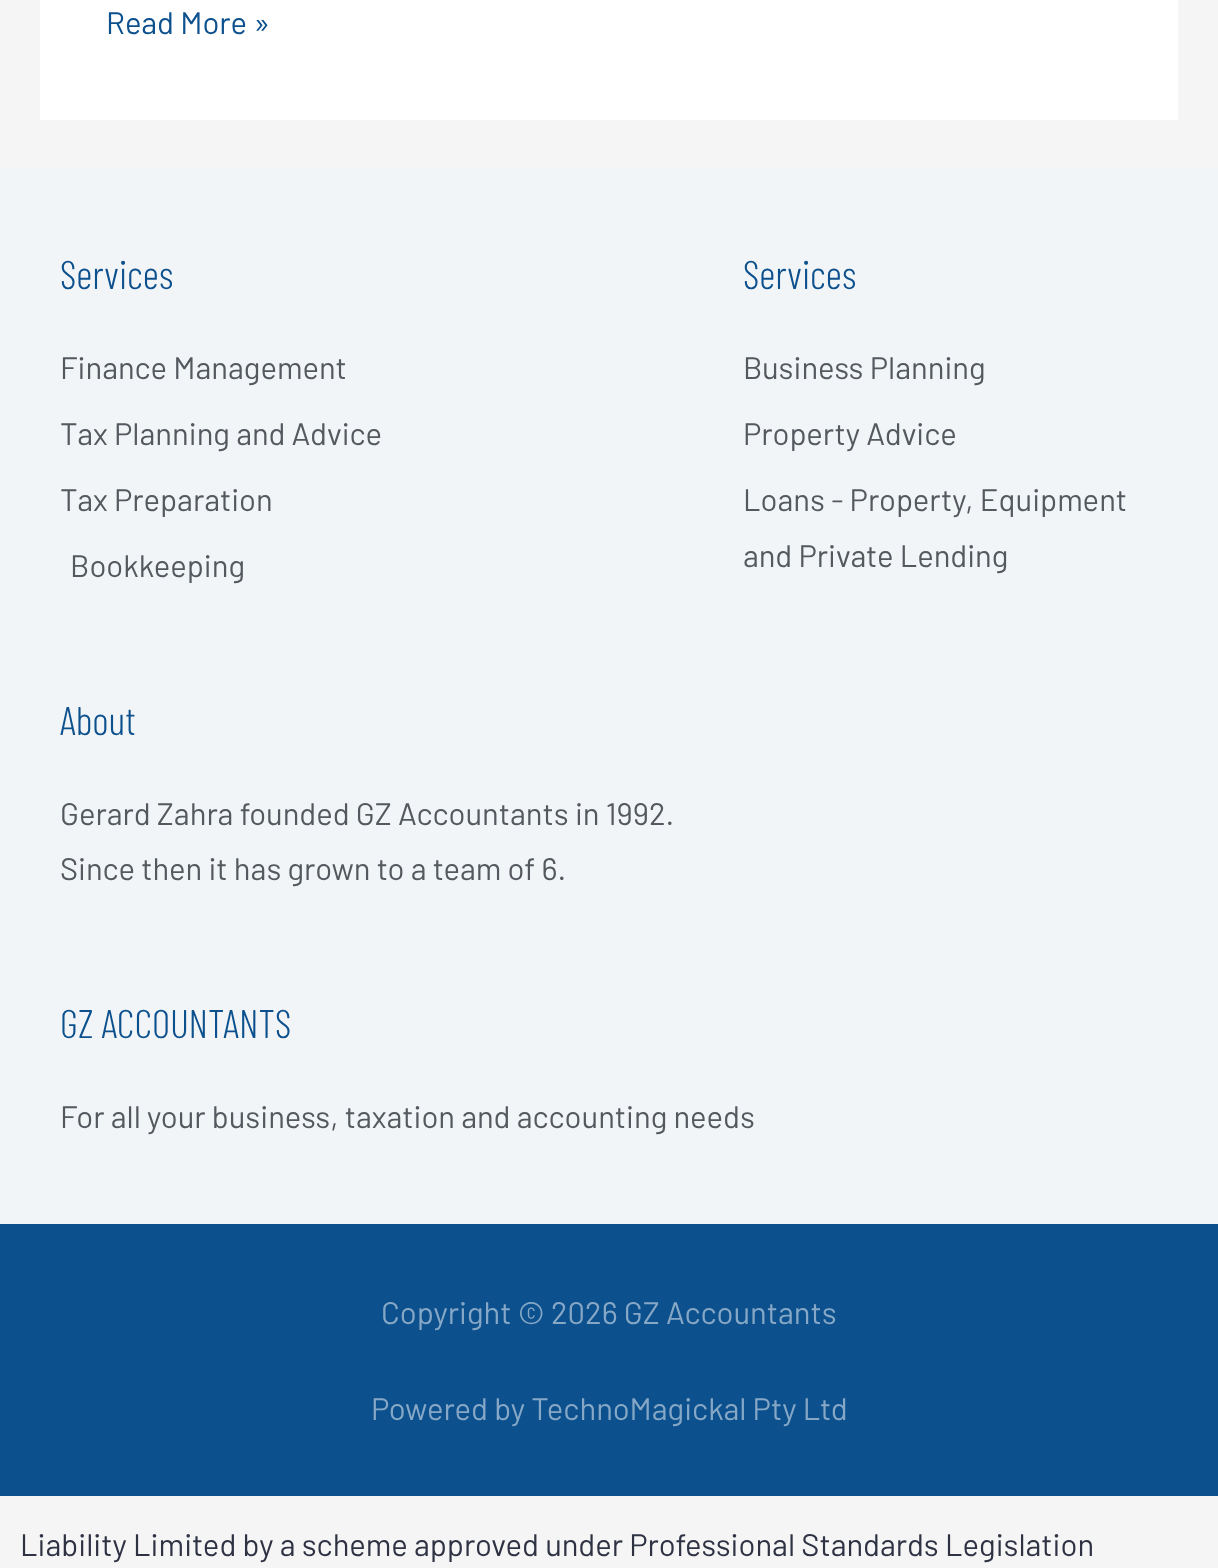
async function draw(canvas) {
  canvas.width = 1218;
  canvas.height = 1568;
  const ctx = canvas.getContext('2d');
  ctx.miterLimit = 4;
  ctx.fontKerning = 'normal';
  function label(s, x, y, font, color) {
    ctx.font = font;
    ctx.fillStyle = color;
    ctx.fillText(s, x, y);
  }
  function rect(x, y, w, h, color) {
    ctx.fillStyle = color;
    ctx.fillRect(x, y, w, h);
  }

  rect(0, 0, 1218, 1568, '#f5f5f5');
  rect(40, 0, 1138, 120, '#fff');
  label('Read More »', 106, 34, '31px Barlow', '#0c508d');
  rect(0, 168, 1218, 1056, '#f2f5f7');
  label('Services', 60, 289, '300 40px Barlow Condensed', '#0c508d');
  label('Finance Management', 60, 379, '31px Barlow', '#54595f');
  label('Tax Planning and Advice', 60, 445, '31px Barlow', '#54595f');
  label('Tax Preparation', 60, 511, '31px Barlow', '#54595f');
  label('Bookkeeping', 70, 577, '31px Barlow', '#54595f');
  label('Services', 743, 289, '300 40px Barlow Condensed', '#0c508d');
  label('Business Planning', 743, 379, '31px Barlow', '#54595f');
  label('Property Advice', 743, 445, '31px Barlow', '#54595f');
  label('Loans - Property, Equipment', 743, 511, '31px Barlow', '#54595f');
  label('and Private Lending', 743, 567, '31px Barlow', '#54595f');
  label('About', 60, 735, '300 40px Barlow Condensed', '#0c508d');
  label('Gerard Zahra founded GZ Accountants in 1992.', 60, 825, '31px Barlow', '#54595f');
  label('Since then it has grown to a team of 6.', 60, 880, '31px Barlow', '#54595f');
  label('GZ ACCOUNTANTS', 60, 1038, '300 40px Barlow Condensed', '#0c508d');
  label('For all your business, taxation and accounting needs', 60, 1128, '31px Barlow', '#54595f');
  rect(0, 1224, 1218, 272, '#0c508d');
  label('Copyright © 2026 GZ Accountants', 381, 1324, '31px Barlow', '#86a8c6');
  label('Powered by TechnoMagickal Pty Ltd', 371, 1420, '31px Barlow', '#86a8c6');
  label('Liability Limited by a scheme approved under Professional Standards Legislation', 20, 1556, '31px Barlow', '#2e3243');
}

draw(document.querySelector('canvas'));
